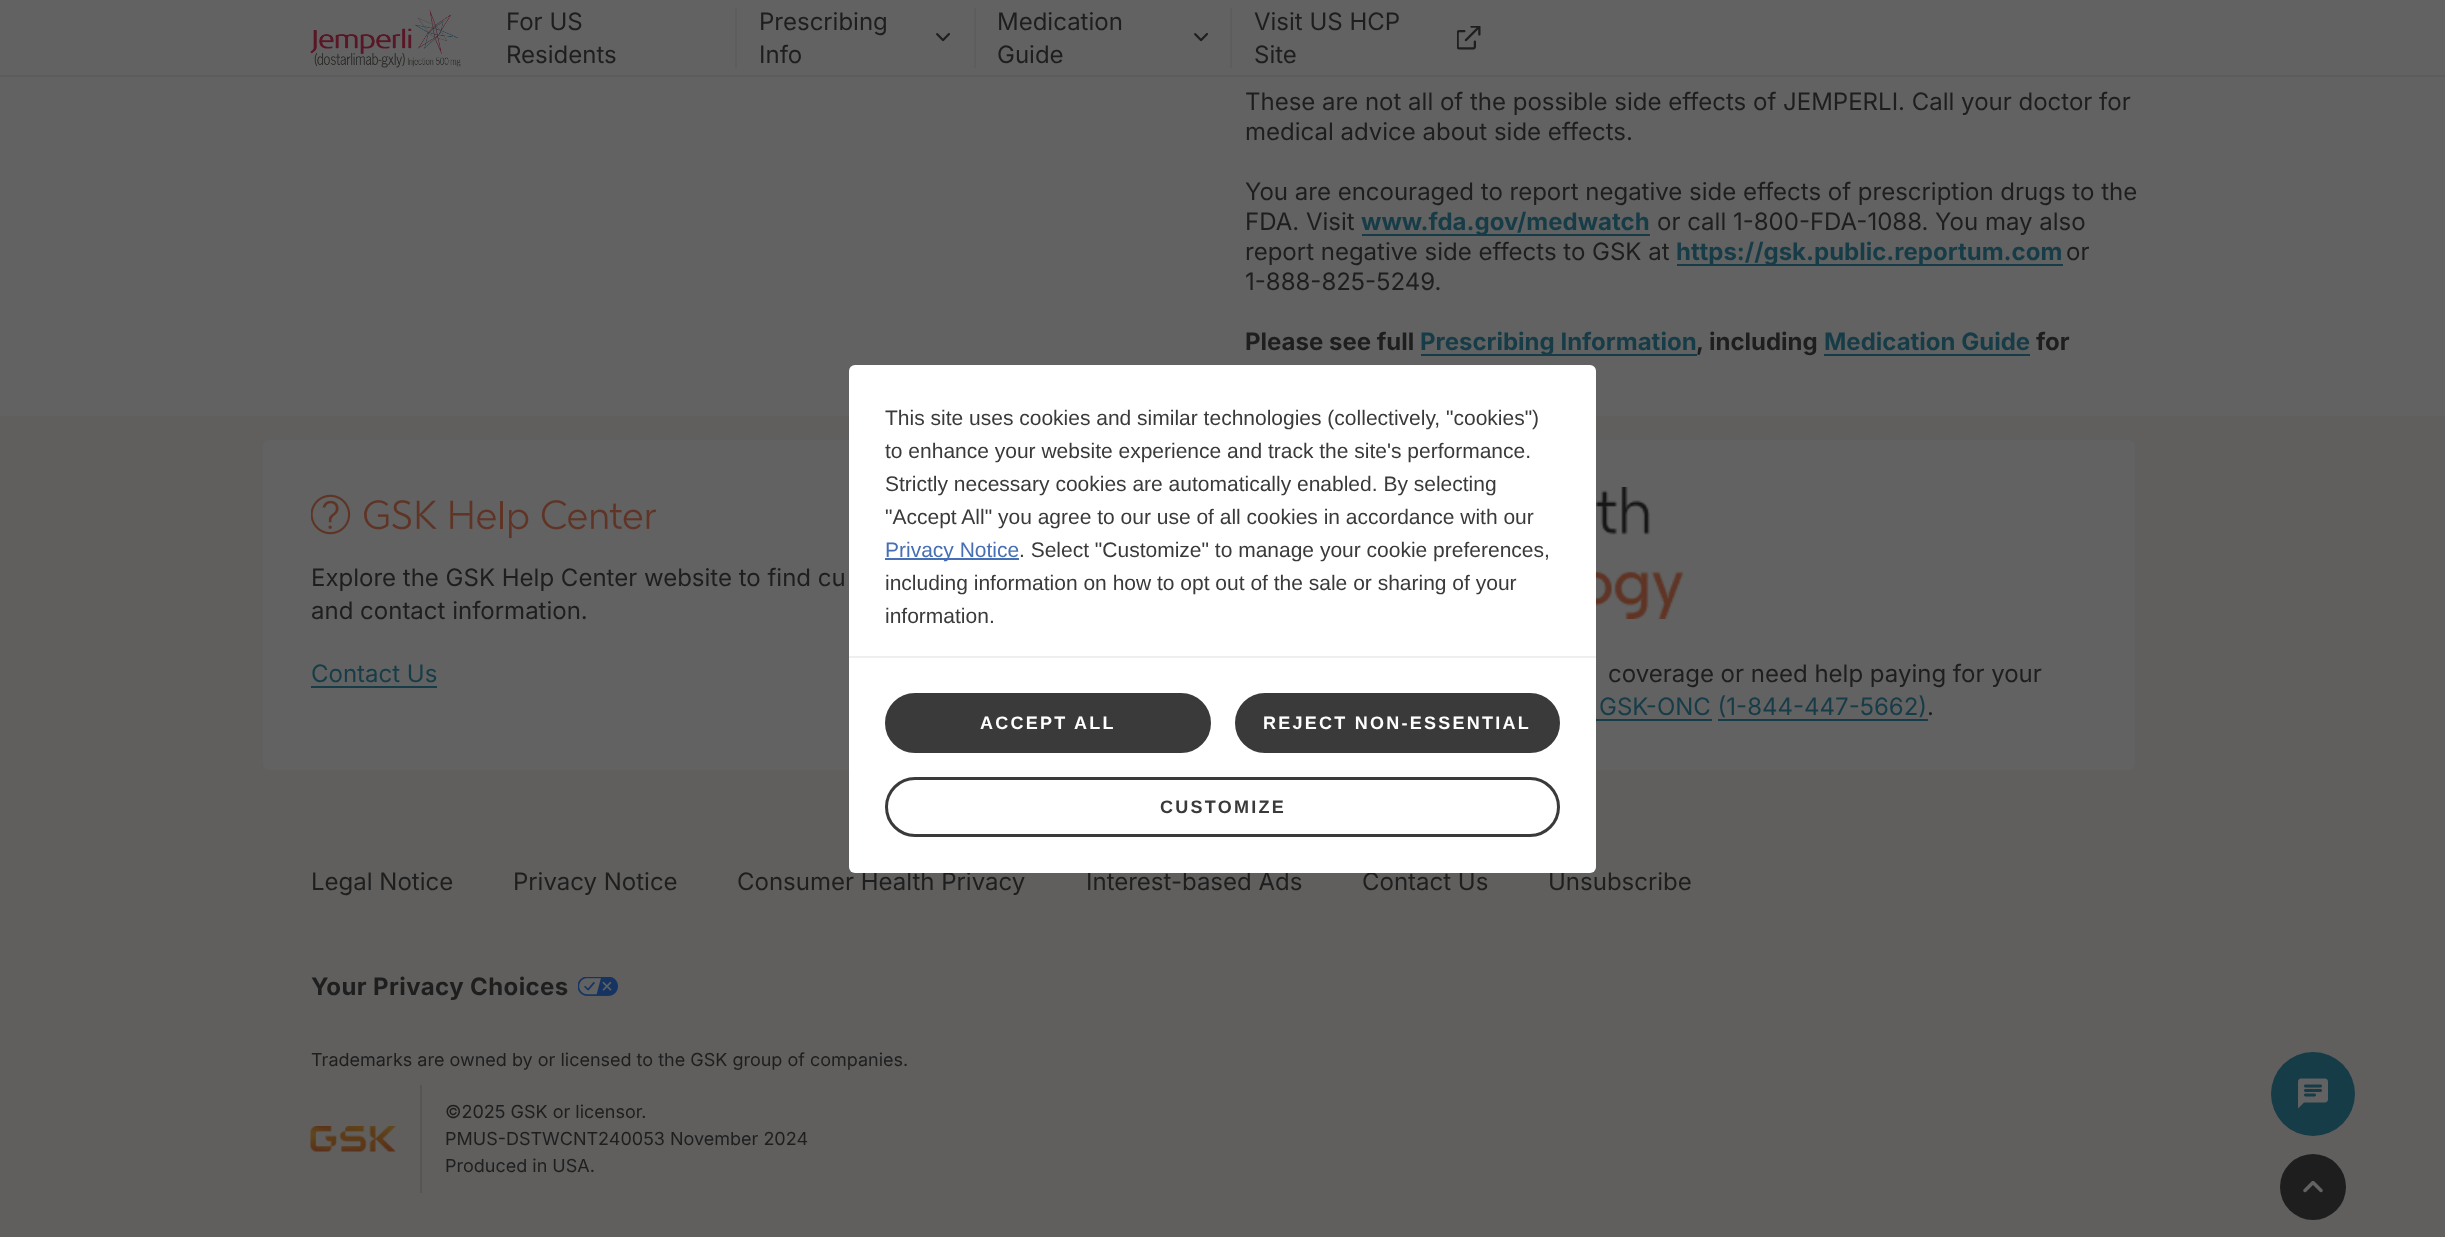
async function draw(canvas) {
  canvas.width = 2445;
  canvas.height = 1237;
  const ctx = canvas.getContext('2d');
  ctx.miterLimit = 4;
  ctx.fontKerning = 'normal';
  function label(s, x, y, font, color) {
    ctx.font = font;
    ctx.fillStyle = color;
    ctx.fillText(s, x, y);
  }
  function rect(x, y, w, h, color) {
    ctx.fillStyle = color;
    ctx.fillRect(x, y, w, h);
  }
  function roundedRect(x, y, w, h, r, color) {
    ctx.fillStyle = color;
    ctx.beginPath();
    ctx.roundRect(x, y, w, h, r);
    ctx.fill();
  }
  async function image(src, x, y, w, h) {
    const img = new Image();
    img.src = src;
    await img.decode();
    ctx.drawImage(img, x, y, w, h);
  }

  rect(0, 0, 2445, 1237, '#605f5e');
  rect(0, 0, 2445, 75, '#626262');
  rect(0, 75, 2445, 2, '#5c5c5c');
  await image('assets/img1.png', 310, 9, 151, 59);
  label('For US', 506, 30, '24px Inter', '#1e1e1f');
  label('Residents', 506, 63, '24px Inter', '#1e1e1f');
  rect(735, 8, 2, 60, '#5d5d5d');
  label('Prescribing', 759, 30, '24px Inter', '#1e1e1f');
  await image('assets/img2.png', 936, 33, 14, 9);
  label('Info', 759, 63, '24px Inter', '#1e1e1f');
  rect(974, 8, 2, 60, '#5d5d5d');
  label('Medication', 997, 30, '24px Inter', '#1e1e1f');
  await image('assets/img3.png', 1194, 33, 14, 9);
  label('Guide', 997, 63, '24px Inter', '#1e1e1f');
  rect(1230, 8, 2, 60, '#5d5d5d');
  label('Visit US HCP', 1254, 30, '24px Inter', '#1e1e1f');
  await image('assets/img4.png', 1457, 26, 24, 24);
  label('Site', 1254, 63, '24px Inter', '#1e1e1f');
  rect(0, 77, 2445, 339, '#626262');
  label('These are not all of the possible side effects of JEMPERLI. Call your doctor for', 1245, 110, '24px Inter', '#1e1e1f');
  label('medical advice about side effects.', 1245, 140, '24px Inter', '#1e1e1f');
  label('You are encouraged to report negative side effects of prescription drugs to the', 1245, 200, '24px Inter', '#1e1e1f');
  label('FDA. Visit', 1245, 230, '24px Inter', '#1e1e1f');
  rect(1362, 234, 288, 2, '#163c48');
  label('www.fda.gov/medwatch', 1361, 230, 'bold 24px Inter', '#163c48');
  label('or call 1-800-FDA-1088. You may also', 1657, 230, '24px Inter', '#1e1e1f');
  label('report negative side effects to GSK at', 1245, 260, '24px Inter', '#1e1e1f');
  rect(1677, 264, 386, 2, '#163c48');
  label('https://gsk.public.reportum.com', 1676, 260, 'bold 24px Inter', '#163c48');
  label('or', 2066, 260, '24px Inter', '#1e1e1f');
  label('1-888-825-5249.', 1245, 290, '24px Inter', '#1e1e1f');
  label('Please see full', 1245, 350, 'bold 24px Inter', '#1e1e1f');
  rect(1421, 354, 276, 2, '#163c48');
  label('Prescribing Information', 1420, 350, 'bold 24px Inter', '#163c48');
  label(', including', 1696, 350, 'bold 24px Inter', '#1e1e1f');
  label('Medication Guide', 1824, 350, 'bold 24px Inter', '#163c48');
  rect(1824, 354, 206, 2, '#163c48');
  label('for', 2036, 350, 'bold 24px Inter', '#1e1e1f');
  roundedRect(263, 440, 913, 330, 6, '#626262');
  await image('assets/img5.png', 311, 494, 345, 45);
  label('Explore the GSK Help Center website to find cu', 311, 586, '24px Inter', '#1e1e1f');
  label('and contact information.', 311, 619, '24px Inter', '#1e1e1f');
  label('Contact Us', 311, 682, '24px Inter', '#163c48');
  rect(311, 686, 126, 2, '#163c48');
  roundedRect(1221, 440, 914, 330, 6, '#626262');
  await image('assets/img6.png', 1596, 487, 88, 132);
  label('coverage or need help paying for your', 1608, 682, '24px Inter', '#1e1e1f');
  label('GSK-ONC (1-844-447-5662)', 1599, 715, '24px Inter', '#163c48');
  rect(1596, 719, 116, 2, '#163c48');
  label('.', 1927, 715, '24px Inter', '#1e1e1f');
  rect(1718, 719, 210, 2, '#163c48');
  label('Legal Notice', 311, 890, '24px Inter', '#1e1e1f');
  label('Privacy Notice', 513, 890, '24px Inter', '#1e1e1f');
  label('Consumer Health Privacy', 737, 890, '24px Inter', '#1e1e1f');
  label('Interest-based Ads', 1086, 890, '24px Inter', '#1e1e1f');
  label('Contact Us', 1362, 890, '24px Inter', '#1e1e1f');
  label('Unsubscribe', 1548, 890, '24px Inter', '#1e1e1f');
  ctx.letterSpacing = '0.4px';
  label('Your Privacy Choices', 311, 995, 'bold 24px Inter', '#1e1e1f');
  await image('assets/img7.png', 578, 977, 40, 19);
  ctx.letterSpacing = '0px';
  label('Trademarks are owned by or licensed to the GSK group of companies.', 311, 1066, '18px Inter', '#1e1e1f');
  await image('assets/img8.png', 310, 1126, 86, 26);
  rect(420, 1085, 2, 108, '#565454');
  label('©2025 GSK or licensor.', 445, 1118, '18px Inter', '#1e1e1f');
  label('PMUS-DSTWCNT240053 November 2024', 445, 1145, '18px Inter', '#1e1e1f');
  label('Produced in USA.', 445, 1172, '18px Inter', '#1e1e1f');
  roundedRect(849, 365, 747, 508, 6, '#fff');
  label('This site uses cookies and similar technologies (collectively, "cookies")', 885, 425, '21px Liberation Sans', '#3a3a3a');
  label('to enhance your website experience and track the site\'s performance.', 885, 458, '21px Liberation Sans', '#3a3a3a');
  label('Strictly necessary cookies are automatically enabled. By selecting', 885, 491, '21px Liberation Sans', '#3a3a3a');
  label('"Accept All" you agree to our use of all cookies in accordance with our', 885, 524, '21px Liberation Sans', '#3a3a3a');
  rect(885, 558, 134, 2, '#476fb5');
  label('Privacy Notice', 885, 557, '21px Liberation Sans', '#476fb5');
  label('. Select "Customize" to manage your cookie preferences,', 1019, 557, '21px Liberation Sans', '#3a3a3a');
  label('including information on how to opt out of the sale or sharing of your', 885, 590, '21px Liberation Sans', '#3a3a3a');
  label('information.', 885, 623, '21px Liberation Sans', '#3a3a3a');
  rect(849, 656, 747, 2, '#efefed');
  ctx.fillStyle = '#3a3a3a';
  ctx.beginPath();
  ctx.roundRect(886.5, 694.5, 323, 57, 28.5);
  ctx.fill();
  ctx.strokeStyle = '#3a3a3a';
  ctx.lineWidth = 3;
  ctx.stroke();
  ctx.letterSpacing = '2.25px';
  label('ACCEPT ALL', 980, 729, 'bold 18px Liberation Sans', '#fff');
  ctx.fillStyle = '#3a3a3a';
  ctx.beginPath();
  ctx.roundRect(1236.5, 694.5, 322, 57, 28.5);
  ctx.fill();
  ctx.stroke();
  label('REJECT NON-ESSENTIAL', 1263, 729, 'bold 18px Liberation Sans', '#fff');
  ctx.beginPath();
  ctx.roundRect(886.5, 778.5, 672, 57, 28.5);
  ctx.stroke();
  label('CUSTOMIZE', 1160, 813, 'bold 18px Liberation Sans', '#3a3a3a');
  ctx.fillStyle = '#163c48';
  ctx.beginPath();
  ctx.arc(2313, 1094, 42, 0, 2 * Math.PI);
  ctx.fill();
  await image('assets/img9.png', 2298, 1078, 30, 31);
  ctx.fillStyle = '#1e1e1f';
  ctx.beginPath();
  ctx.arc(2313, 1187, 33, 0, 2 * Math.PI);
  ctx.fill();
  await image('assets/img10.png', 2303, 1181, 20, 12);
}

draw(document.querySelector('canvas'));
